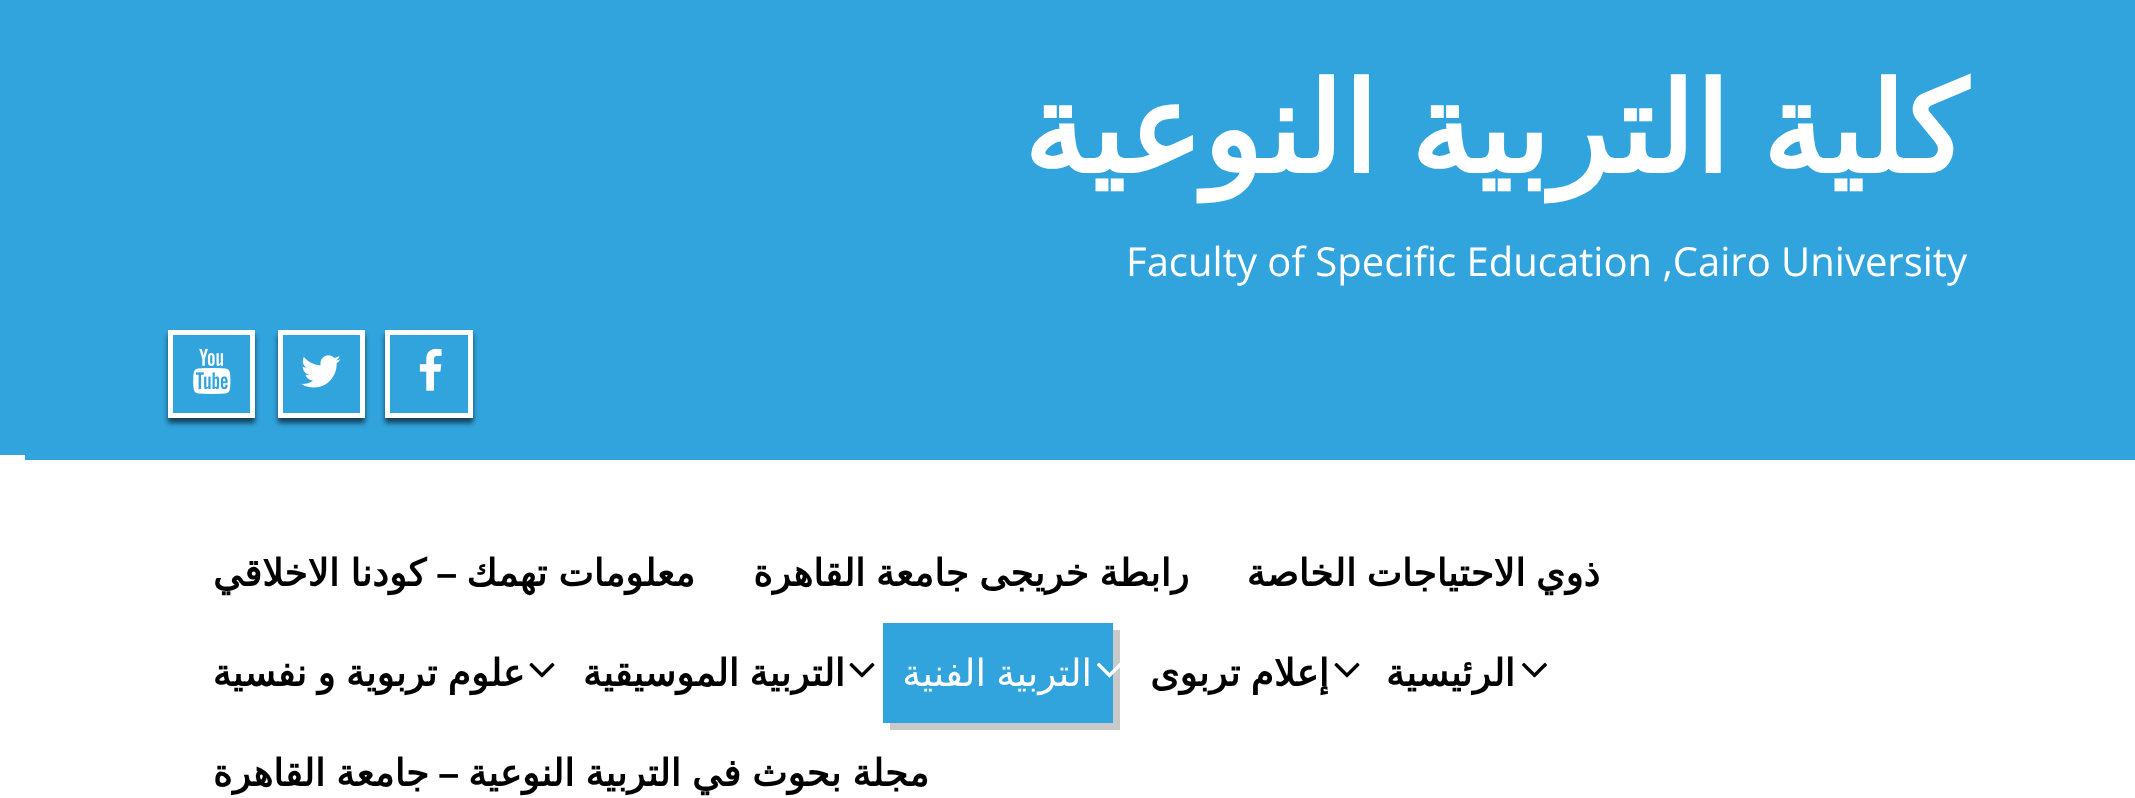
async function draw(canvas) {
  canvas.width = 2135;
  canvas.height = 798;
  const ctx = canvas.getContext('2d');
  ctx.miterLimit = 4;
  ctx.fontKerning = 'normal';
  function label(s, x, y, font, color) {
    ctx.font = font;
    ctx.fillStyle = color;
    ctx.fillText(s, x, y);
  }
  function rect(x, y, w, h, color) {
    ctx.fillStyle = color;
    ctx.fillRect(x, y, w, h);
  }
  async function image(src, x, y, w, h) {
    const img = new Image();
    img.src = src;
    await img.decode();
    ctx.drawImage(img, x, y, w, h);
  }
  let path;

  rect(0, 0, 2135, 798, '#fff');
  rect(0, 0, 2135, 455, '#31a3dd');
  ctx.wordSpacing = '-7px';
  ctx.direction = 'rtl';
  label('كلية التربية النوعية', 1967, 173, 'bold 125px DejaVu Sans', '#fff');
  ctx.wordSpacing = '0px';
  ctx.direction = 'ltr';
  label('Faculty of Specific Education ,Cairo University', 1126, 276, '40px Open Sans', '#fff');
  ctx.save();
  path = new Path2D('M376 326H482V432H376ZM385 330H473V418H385Z');
  ctx.clip(path, 'evenodd');
  ctx.fillStyle = '#00000099';
  ctx.filter = 'blur(2.5px)';
  ctx.beginPath();
  ctx.rect(385, 335, 88, 88);
  ctx.fill();
  ctx.filter = 'none';
  ctx.restore();
  ctx.strokeStyle = '#fff';
  ctx.lineWidth = 5;
  ctx.strokeRect(387.5, 332.5, 83, 83);
  await image('assets/img1.png', 419, 348, 23, 43);
  ctx.save();
  path = new Path2D('M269 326H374V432H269ZM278 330H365V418H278Z');
  ctx.clip(path, 'evenodd');
  ctx.fillStyle = '#00000099';
  ctx.filter = 'blur(2.5px)';
  ctx.beginPath();
  ctx.rect(278, 335, 87, 88);
  ctx.fill();
  ctx.filter = 'none';
  ctx.restore();
  ctx.strokeRect(280.5, 332.5, 82, 83);
  await image('assets/img2.png', 301, 355, 40, 33);
  ctx.save();
  path = new Path2D('M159 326H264V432H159ZM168 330H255V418H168Z');
  ctx.clip(path, 'evenodd');
  ctx.fillStyle = '#00000099';
  ctx.filter = 'blur(2.5px)';
  ctx.beginPath();
  ctx.rect(168, 335, 87, 88);
  ctx.fill();
  ctx.filter = 'none';
  ctx.restore();
  ctx.strokeRect(170.5, 332.5, 82, 83);
  await image('assets/img3.png', 193, 348, 38, 46);
  rect(25, 455, 2110, 5, '#31a3dd');
  ctx.wordSpacing = '-1.5px';
  ctx.direction = 'rtl';
  label('ذوي الاحتياجات الخاصة', 1600, 586, 'bold 37.5px DejaVu Sans', '#000');
  label('رابطة خريجى جامعة القاهرة', 1189, 586, 'bold 37.5px DejaVu Sans', '#000');
  ctx.wordSpacing = '-1px';
  label('معلومات تهمك', 695, 586, 'bold 37.5px DejaVu Sans', '#000');
  ctx.wordSpacing = '0px';
  label('–', 457, 586, 'bold 37.5px Liberation Sans', '#000');
  ctx.wordSpacing = '-1px';
  label('كودنا الاخلاقي', 426, 586, 'bold 37.5px DejaVu Sans', '#000');
  await image('assets/img4.png', 1522, 662, 25, 16);
  ctx.wordSpacing = '0px';
  label('الرئيسية', 1515, 686, 'bold 37.5px DejaVu Sans', '#000');
  await image('assets/img5.png', 1334, 662, 26, 16);
  ctx.wordSpacing = '-1.5px';
  label('إعلام تربوى', 1329, 686, 'bold 37.5px DejaVu Sans', '#000');
  ctx.fillStyle = '#c9c9c9';
  path = new Path2D('M890 722V730H1120V630H1112V722Z');
  ctx.fill(path);
  rect(883, 623, 230, 100, '#31a3dd');
  await image('assets/img6.png', 1097, 662, 23, 16);
  label('التربية الفنية', 1092, 686, '37.5px DejaVu Sans', '#fff');
  await image('assets/img5.png', 849, 662, 26, 16);
  label('التربية الموسيقية', 845, 686, 'bold 37.5px DejaVu Sans', '#000');
  await image('assets/img5.png', 529, 662, 26, 16);
  label('علوم تربوية و نفسية', 525, 686, 'bold 37.5px DejaVu Sans', '#000');
  ctx.wordSpacing = '-1px';
  label('مجلة بحوث في التربية النوعية', 929, 786, 'bold 37.5px DejaVu Sans', '#000');
  ctx.wordSpacing = '0px';
  label('–', 459, 786, 'bold 37.5px Liberation Sans', '#000');
  ctx.wordSpacing = '-1px';
  label('جامعة القاهرة', 429, 786, 'bold 37.5px DejaVu Sans', '#000');
}

draw(document.querySelector('canvas'));
